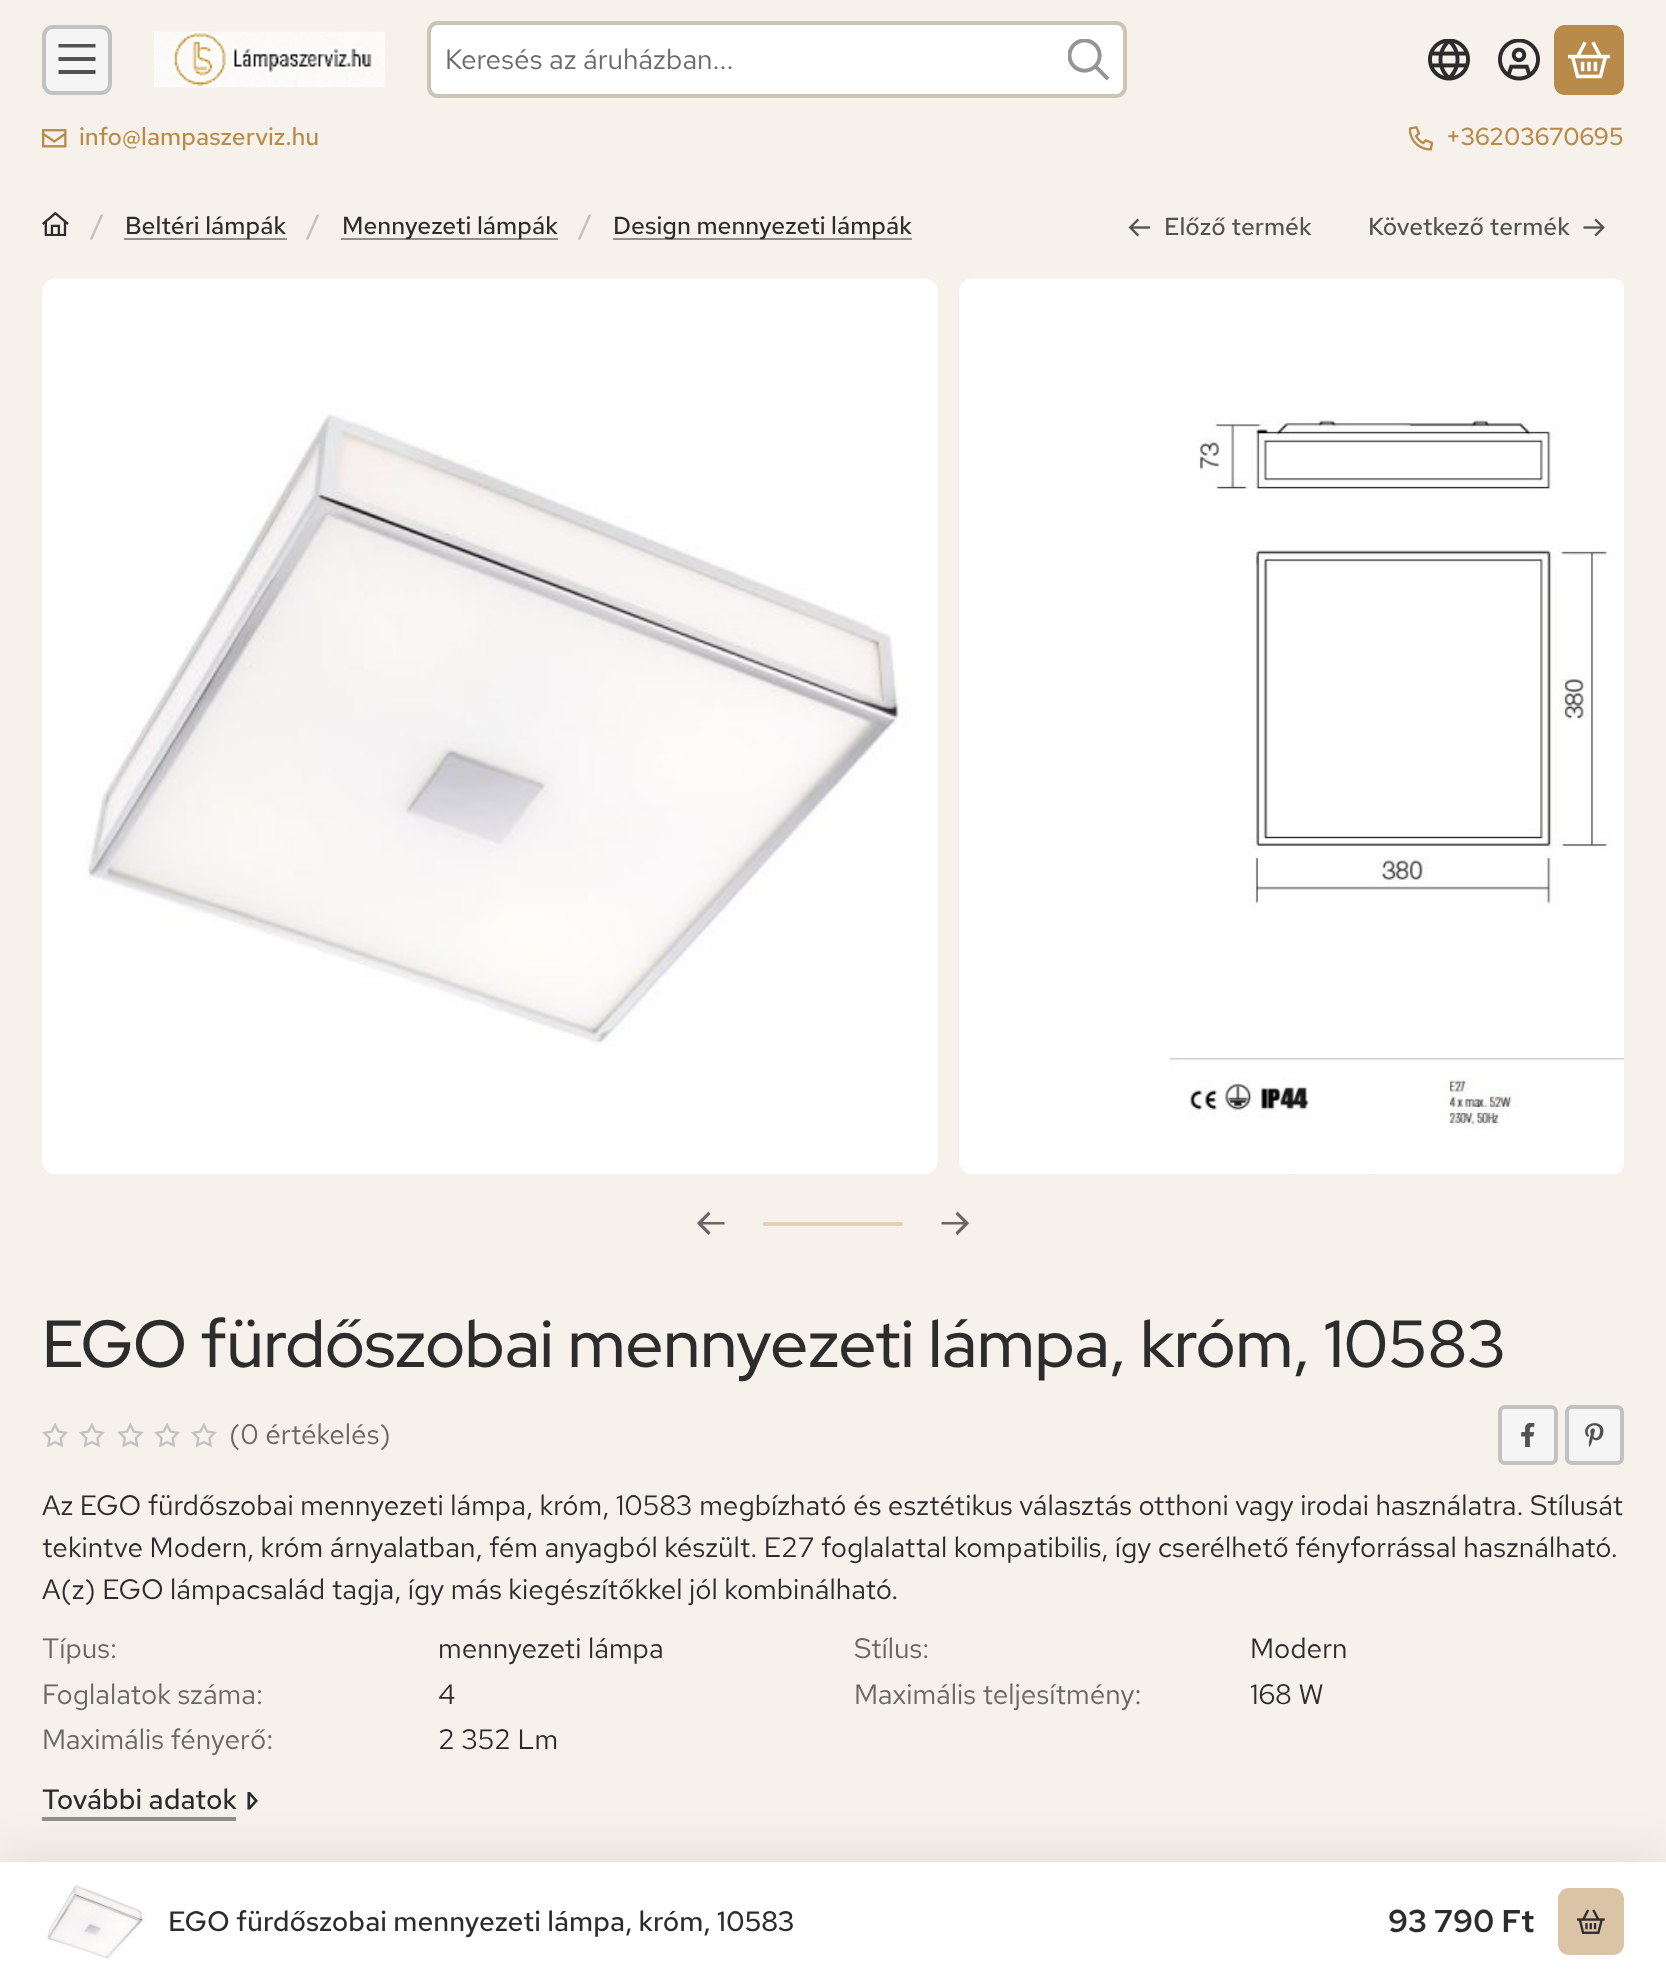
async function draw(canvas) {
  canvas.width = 1666;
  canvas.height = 1981;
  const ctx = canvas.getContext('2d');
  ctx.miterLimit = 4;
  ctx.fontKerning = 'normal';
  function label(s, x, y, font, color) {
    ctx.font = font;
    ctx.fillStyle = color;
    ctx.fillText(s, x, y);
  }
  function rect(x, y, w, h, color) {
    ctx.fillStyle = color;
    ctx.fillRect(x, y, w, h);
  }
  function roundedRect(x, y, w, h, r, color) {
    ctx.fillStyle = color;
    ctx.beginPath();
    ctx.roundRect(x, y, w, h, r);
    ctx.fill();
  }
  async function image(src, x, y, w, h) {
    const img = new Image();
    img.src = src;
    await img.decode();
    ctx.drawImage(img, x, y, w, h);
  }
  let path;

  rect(0, 0, 1666, 1981, '#f6f1eb');
  ctx.fillStyle = '#f5f5f5';
  ctx.beginPath();
  ctx.roundRect(44, 27, 66, 66, 9);
  ctx.fill();
  ctx.strokeStyle = '#c2c2c2';
  ctx.lineWidth = 4;
  ctx.stroke();
  ctx.fillStyle = '#525252';
  path = new Path2D('M58.5 44H95.5V47.5H58.5ZM58.5 57H95.5V61H58.5ZM95.5 70V74H58.5V70Z');
  ctx.fill(path);
  await image('assets/img1.png', 154, 31, 231, 57);
  ctx.fillStyle = '#fff';
  ctx.beginPath();
  ctx.roundRect(429, 23, 696, 73, 9);
  ctx.fill();
  ctx.strokeStyle = '#ccc4b4';
  ctx.stroke();
  label('Keresés az áruházban...', 445, 69, '28px Red Hat Text', '#6b6b6b');
  await image('assets/img2.png', 1068, 39, 42, 42);
  await image('assets/img3.png', 1428, 39, 42, 42);
  await image('assets/img4.png', 1498, 39, 42, 42);
  ctx.fillStyle = '#b88b4a';
  ctx.beginPath();
  ctx.roundRect(1556, 27, 66, 66, 9);
  ctx.fill();
  ctx.strokeStyle = '#b88b4a';
  ctx.stroke();
  await image('assets/img5.png', 1568, 41, 42, 38);
  await image('assets/img6.png', 42, 129, 25, 19);
  label('info@lampaszerviz.hu', 79, 145, '500 24.5px Red Hat Text', '#b88b4a');
  await image('assets/img7.png', 1409, 126, 24, 25);
  label('+36203670695', 1446, 145, '500 24.5px Red Hat Text', '#b88b4a');
  await image('assets/img8.png', 42, 212, 27, 24);
  label('/', 91, 234, '500 28px Red Hat Text', '#c2c2c2');
  rect(124, 238, 163, 2, '#918f8c');
  label('Beltéri lámpák', 125, 234, '500 24.5px Red Hat Text', '#2c2c2c');
  label('/', 307, 234, '500 28px Red Hat Text', '#c2c2c2');
  rect(341, 238, 217, 2, '#918f8c');
  label('Mennyezeti lámpák', 342, 234, '500 24.5px Red Hat Text', '#2c2c2c');
  label('/', 579, 234, '500 28px Red Hat Text', '#c2c2c2');
  rect(613, 238, 299, 2, '#918f8c');
  label('Design mennyezeti lámpák', 613, 234, '500 24.5px Red Hat Text', '#2c2c2c');
  await image('assets/img9.png', 1128, 218, 22, 19);
  label('Előző termék', 1164, 235, '500 24.5px Red Hat Text', '#525252');
  label('Következő termék', 1368, 235, '500 24.5px Red Hat Text', '#525252');
  await image('assets/img10.png', 1583, 218, 22, 19);
  await image('assets/img11.png', 42, 278, 896, 896);
  await image('assets/img12.png', 959, 278, 665, 896);
  ctx.fillStyle = '#696765';
  path = new Path2D('M698 1224.5L697 1223L708.5 1211.5L710.5 1214L702.5 1222H724.5V1224.5H702.5L710.5 1232.5L708.5 1235Z');
  ctx.fill(path);
  roundedRect(763, 1222, 140, 4, 2, '#e3d1b7');
  ctx.fillStyle = '#696765';
  path = new Path2D('M968 1224.5L969 1223L957.5 1211.5L955.5 1214L963.5 1222H941.5V1224.5H963.5L955.5 1232.5L957.5 1235Z');
  ctx.fill(path);
  label('EGO fürdőszobai mennyezeti lámpa, króm, 10583', 42, 1367, '500 66.5px Red Hat Display', '#2c2c2c');
  await image('assets/img13.png', 42, 1422, 26, 26);
  await image('assets/img14.png', 79, 1422, 26, 26);
  await image('assets/img15.png', 117, 1422, 27, 26);
  await image('assets/img13.png', 154, 1422, 26, 26);
  await image('assets/img14.png', 191, 1422, 26, 26);
  label('(0 értékelés)', 229, 1444, '28px Red Hat Text', '#696765');
  ctx.fillStyle = '#f5f5f5';
  ctx.beginPath();
  ctx.roundRect(1500, 1407, 56, 56, 5);
  ctx.fill();
  ctx.strokeStyle = '#c2c2c2';
  ctx.stroke();
  await image('assets/img16.png', 1521, 1423, 14, 24);
  ctx.beginPath();
  ctx.roundRect(1567, 1407, 55, 56, 5);
  ctx.fill();
  ctx.stroke();
  await image('assets/img17.png', 1585, 1423, 19, 24);
  label('Az EGO fürdőszobai mennyezeti lámpa, króm, 10583 megbízható és esztétikus választás otthoni vagy irodai használatra. Stílusát', 42, 1515, '28px Red Hat Text', '#2c2c2c');
  label('tekintve Modern, króm árnyalatban, fém anyagból készült. E27 foglalattal kompatibilis, így cserélhető fényforrással használható.', 42, 1557, '28px Red Hat Text', '#2c2c2c');
  label('A(z) EGO lámpacsalád tagja, így más kiegészítőkkel jól kombinálható.', 42, 1599, '28px Red Hat Text', '#2c2c2c');
  label('Típus:', 42, 1658, '28px Red Hat Text', '#696765');
  label('mennyezeti lámpa', 438, 1658, '28px Red Hat Text', '#2c2c2c');
  label('Stílus:', 854, 1658, '28px Red Hat Text', '#696765');
  label('Modern', 1250, 1658, '28px Red Hat Text', '#2c2c2c');
  label('Foglalatok száma:', 42, 1704, '28px Red Hat Text', '#696765');
  label('4', 438, 1704, '28px Red Hat Text', '#2c2c2c');
  label('Maximális teljesítmény:', 854, 1704, '28px Red Hat Text', '#696765');
  label('168 W', 1250, 1704, '28px Red Hat Text', '#2c2c2c');
  label('Maximális fényerő:', 42, 1749, '28px Red Hat Text', '#696765');
  label('2 352 Lm', 438, 1749, '28px Red Hat Text', '#2c2c2c');
  label('További adatok', 42, 1809, '500 28px Red Hat Text', '#2c2c2c');
  rect(42, 1817, 194, 4, '#918f8c');
  await image('assets/img18.png', 247, 1792, 11, 18);
  ctx.fillStyle = '#0000001a';
  ctx.filter = 'blur(26px)';
  ctx.beginPath();
  ctx.rect(0, 1862, 1666, 119);
  ctx.fill();
  ctx.filter = 'none';
  rect(0, 1862, 1666, 119, '#fff');
  await image('assets/img19.png', 47, 1883, 100, 76);
  label('EGO fürdőszobai mennyezeti lámpa, króm, 10583', 168, 1931, '500 28px Red Hat Text', '#2c2c2c');
  label('93 790 Ft', 1388, 1932, '600 31.5px Red Hat Text', '#2c2c2c');
  ctx.fillStyle = '#dac4a5';
  ctx.beginPath();
  ctx.roundRect(1560, 1890, 62, 63, 9);
  ctx.fill();
  ctx.strokeStyle = '#dac4a5';
  ctx.stroke();
  await image('assets/img20.png', 1577, 1909, 28, 25);
}

draw(document.querySelector('canvas'));
